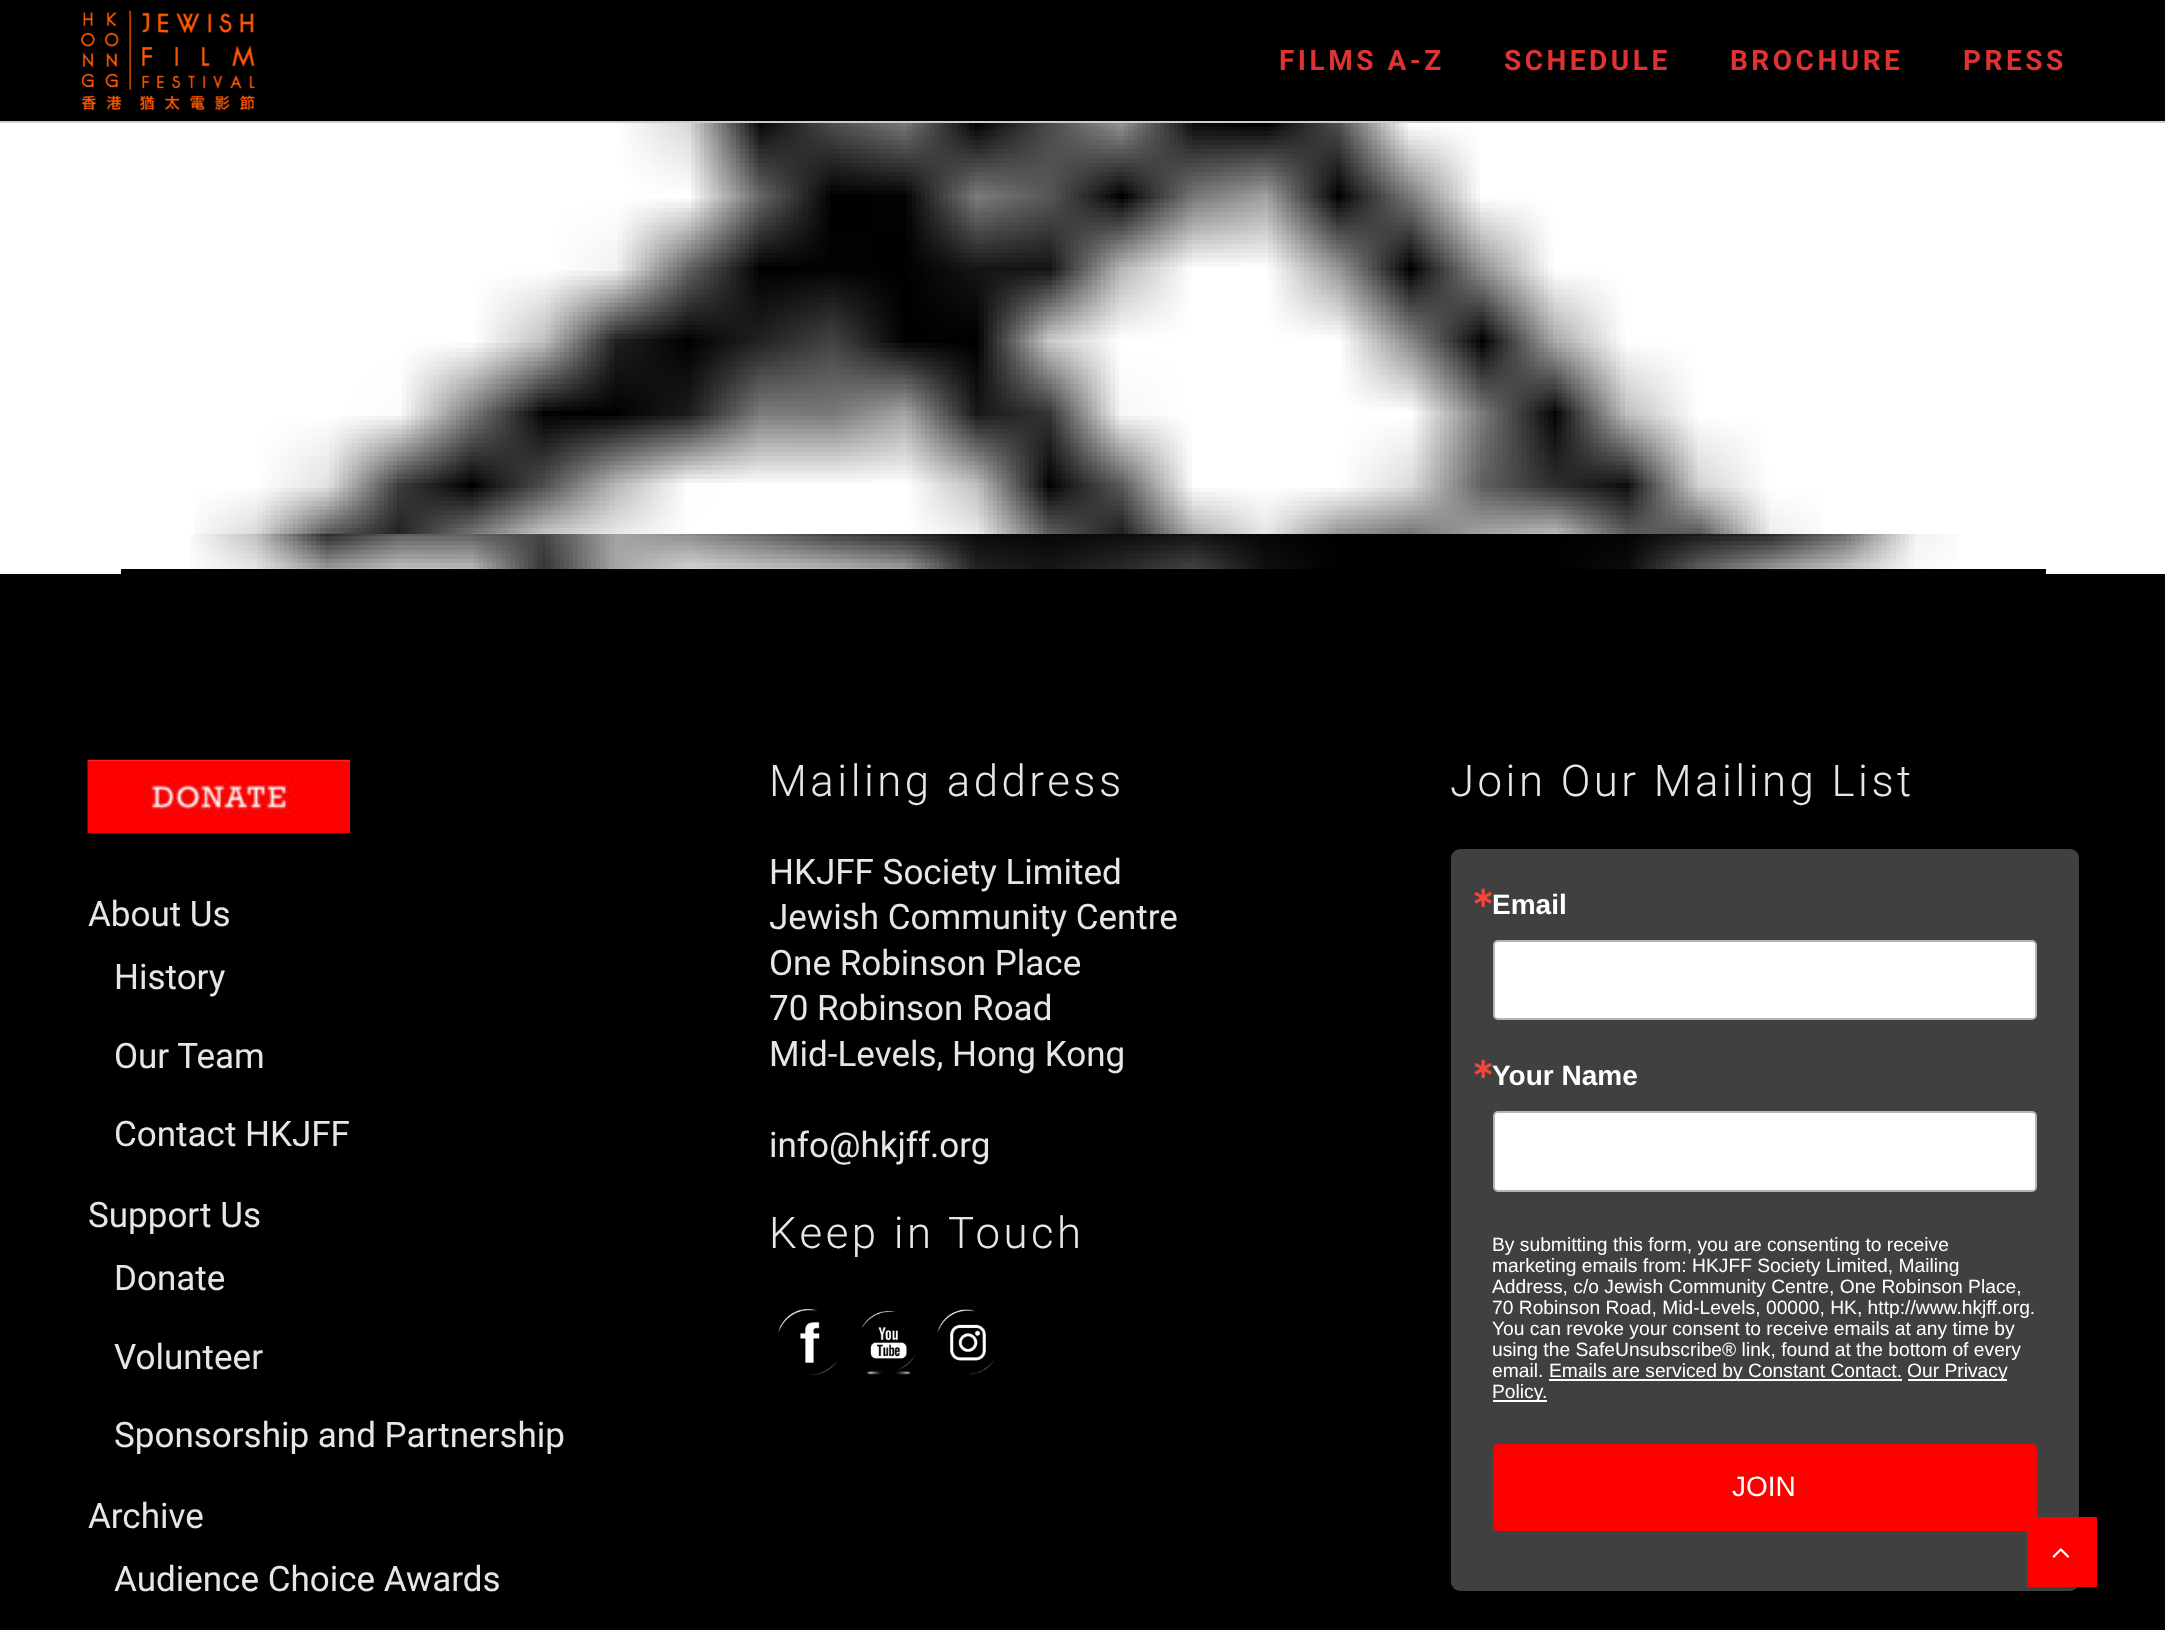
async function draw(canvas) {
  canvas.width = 2165;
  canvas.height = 1630;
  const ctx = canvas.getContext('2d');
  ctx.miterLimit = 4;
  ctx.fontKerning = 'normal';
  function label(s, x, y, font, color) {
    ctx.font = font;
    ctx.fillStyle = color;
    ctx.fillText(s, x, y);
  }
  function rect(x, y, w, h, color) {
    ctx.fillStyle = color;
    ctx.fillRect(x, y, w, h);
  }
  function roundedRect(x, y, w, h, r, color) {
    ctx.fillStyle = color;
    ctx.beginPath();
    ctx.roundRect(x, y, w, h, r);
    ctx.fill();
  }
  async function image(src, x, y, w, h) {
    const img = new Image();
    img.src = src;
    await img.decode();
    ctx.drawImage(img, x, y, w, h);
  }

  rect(0, 0, 2165, 1630, '#fff');
  rect(0, 0, 2165, 121, '#000');
  rect(0, 121, 2165, 2, '#cdcdcd');
  await image('assets/img1.png', 81, 10, 175, 101);
  ctx.letterSpacing = '3.5px';
  label('FILMS A-Z', 1279, 70, 'bold 28px Roboto', '#d33');
  label('SCHEDULE', 1504, 70, 'bold 28px Roboto', '#d33');
  label('BROCHURE', 1730, 70, 'bold 28px Roboto', '#d33');
  label('PRESS', 1963, 70, 'bold 28px Roboto', '#d33');
  await image('assets/img2.png', 194, 123, 1629, 411);
  await image('assets/img3.png', 190, 534, 1769, 35);
  rect(121, 569, 1925, 5, '#000');
  rect(0, 574, 2165, 1056, '#000');
  await image('assets/img4.png', 87, 759, 263, 75);
  ctx.letterSpacing = '0px';
  label('About Us', 88, 926, '35px Roboto', '#e6e6e6');
  label('History', 114, 989, '35px Roboto', '#e6e6e6');
  label('Our Team', 114, 1068, '35px Roboto', '#e6e6e6');
  label('Contact HKJFF', 114, 1146, '35px Roboto', '#e6e6e6');
  label('Support Us', 88, 1227, '35px Roboto', '#e6e6e6');
  label('Donate', 114, 1290, '35px Roboto', '#e6e6e6');
  label('Volunteer', 114, 1369, '35px Roboto', '#e6e6e6');
  label('Sponsorship and Partnership', 114, 1447, '35px Roboto', '#e6e6e6');
  label('Archive', 88, 1528, '35px Roboto', '#e6e6e6');
  label('Audience Choice Awards', 114, 1591, '35px Roboto', '#e6e6e6');
  ctx.letterSpacing = '3.5px';
  label('Mailing address', 769, 796, '300 43.75px Roboto', '#e6e6e6');
  ctx.letterSpacing = '0px';
  label('HKJFF Society Limited', 769, 884, '35px Roboto', '#e6e6e6');
  label('Jewish Community Centre', 769, 929, '35px Roboto', '#e6e6e6');
  label('One Robinson Place', 769, 975, '35px Roboto', '#e6e6e6');
  label('70 Robinson Road', 769, 1020, '35px Roboto', '#e6e6e6');
  label('Mid-Levels, Hong Kong', 769, 1066, '35px Roboto', '#e6e6e6');
  label('info@hkjff.org', 769, 1157, '35px Roboto', '#e6e6e6');
  ctx.letterSpacing = '3.5px';
  label('Keep in Touch', 769, 1248, '300 43.75px Roboto', '#e6e6e6');
  await image('assets/img5.png', 778, 1309, 60, 67);
  await image('assets/img6.png', 861, 1311, 55, 64);
  await image('assets/img7.png', 937, 1309, 58, 66);
  label('Join Our Mailing List', 1450, 796, '300 43.75px Roboto', '#e6e6e6');
  roundedRect(1451, 849, 628, 742, 9, '#404040');
  ctx.letterSpacing = '0px';
  label('∗', 1471, 907, 'bold 28px DejaVu Sans', '#f5463b');
  label('Email', 1492, 914, 'bold 28px Liberation Sans', '#fff');
  ctx.beginPath();
  ctx.roundRect(1494, 941, 542, 78, 4);
  ctx.fill();
  ctx.strokeStyle = '#b0b6bb';
  ctx.lineWidth = 2;
  ctx.stroke();
  label('∗', 1471, 1078, 'bold 28px DejaVu Sans', '#f5463b');
  label('Your Name', 1492, 1085, 'bold 28px Liberation Sans', '#fff');
  ctx.beginPath();
  ctx.roundRect(1494, 1112, 542, 79, 4);
  ctx.fill();
  ctx.stroke();
  label('By submitting this form, you are consenting to receive', 1492, 1251, '19.25px Liberation Sans', '#fff');
  label('marketing emails from: HKJFF Society Limited, Mailing', 1492, 1272, '19.25px Liberation Sans', '#fff');
  label('Address, c/o Jewish Community Centre, One Robinson Place,', 1492, 1293, '19.25px Liberation Sans', '#fff');
  label('70 Robinson Road, Mid-Levels, 00000, HK, http://www.hkjff.org.', 1492, 1314, '19.25px Liberation Sans', '#fff');
  label('You can revoke your consent to receive emails at any time by', 1492, 1335, '19.25px Liberation Sans', '#fff');
  label('using the SafeUnsubscribe® link, found at the bottom of every', 1492, 1356, '19.25px Liberation Sans', '#fff');
  label('email.', 1492, 1377, '19.25px Liberation Sans', '#fff');
  rect(1549, 1379, 353, 2, '#fff');
  label('Emails are serviced by Constant Contact.', 1549, 1377, '19.25px Liberation Sans', '#fff');
  rect(1908, 1379, 99, 2, '#fff');
  label('Our Privacy', 1907, 1377, '19.25px Liberation Sans', '#fff');
  rect(1493, 1400, 54, 2, '#fff');
  label('Policy.', 1492, 1398, '19.25px Liberation Sans', '#fff');
  ctx.fillStyle = '#f00';
  ctx.beginPath();
  ctx.roundRect(1494, 1445, 542, 85, 4);
  ctx.fill();
  ctx.strokeStyle = '#f00';
  ctx.stroke();
  label('JOIN', 1732, 1496, '28px Liberation Sans', '#fff');
  rect(2027, 1517, 70, 70, '#f00');
  await image('assets/img8.png', 2052, 1548, 17, 10);
}

draw(document.querySelector('canvas'));
